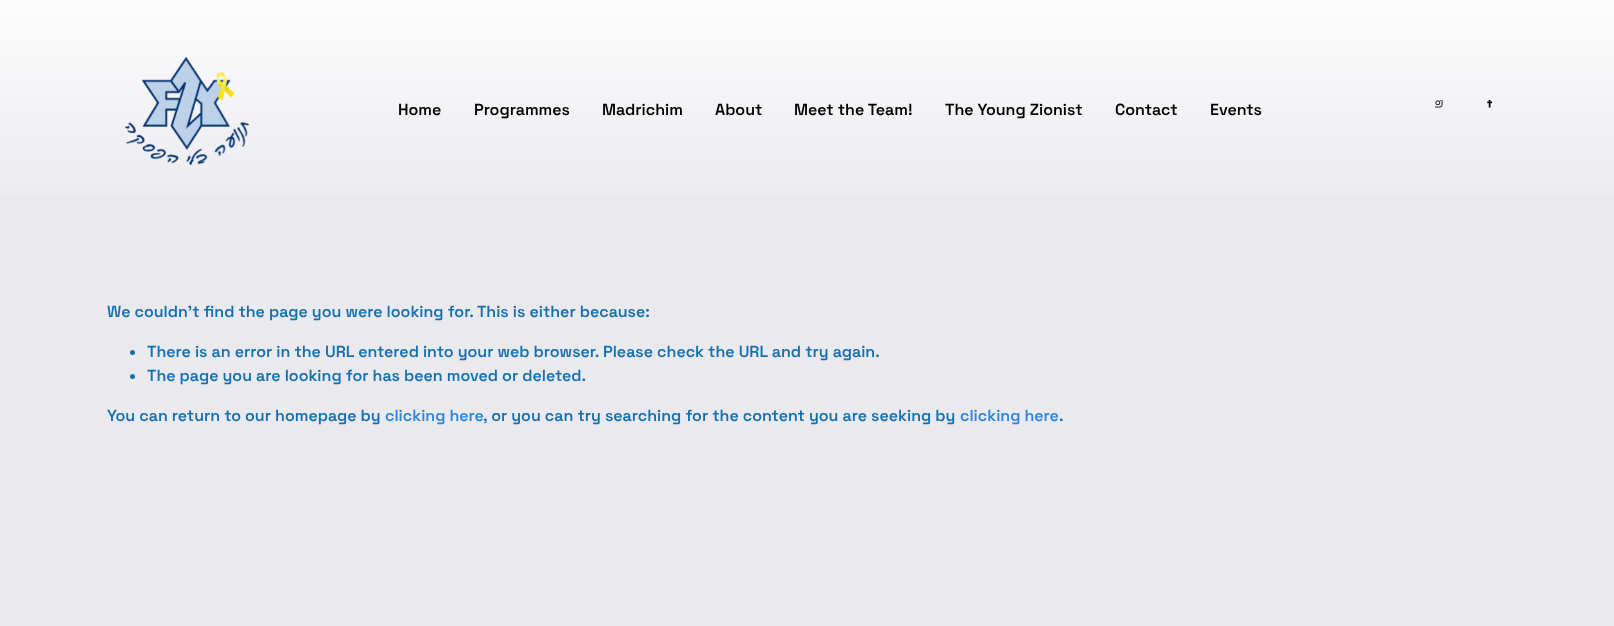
async function draw(canvas) {
  canvas.width = 1614;
  canvas.height = 626;
  const ctx = canvas.getContext('2d');
  ctx.miterLimit = 4;
  ctx.fontKerning = 'normal';
  function label(s, x, y, font, color) {
    ctx.font = font;
    ctx.fillStyle = color;
    ctx.fillText(s, x, y);
  }
  function rect(x, y, w, h, color) {
    ctx.fillStyle = color;
    ctx.fillRect(x, y, w, h);
  }
  async function image(src, x, y, w, h) {
    const img = new Image();
    img.src = src;
    await img.decode();
    ctx.drawImage(img, x, y, w, h);
  }
  let gradient;

  rect(0, 0, 1614, 626, '#eaeaee');
  gradient = ctx.createLinearGradient(807, 0, 807, 220);
  gradient.addColorStop(0, '#fdfdfd');
  gradient.addColorStop(1, '#e9e9ef');
  ctx.fillStyle = gradient;
  ctx.fillRect(0, 0, 1614, 196);
  await image('assets/img1.png', 125, 56, 125, 110);
  label('Home', 398, 115, '600 16px Space Grotesk', '#000');
  label('Programmes', 474, 115, '600 16px Space Grotesk', '#000');
  label('Madrichim', 602, 115, '600 16px Space Grotesk', '#000');
  label('About', 715, 115, '600 16px Space Grotesk', '#000');
  label('Meet the Team!', 794, 115, '600 16px Space Grotesk', '#000');
  label('The Young Zionist', 945, 115, '600 16px Space Grotesk', '#000');
  label('Contact', 1115, 115, '600 16px Space Grotesk', '#000');
  label('Events', 1210, 115, '600 16px Space Grotesk', '#000');
  await image('assets/img2.png', 1435, 100, 8, 8);
  await image('assets/img3.png', 1487, 100, 6, 8);
  label('We couldn\'t find the page you were looking for. This is either because:', 107, 317, '600 16px Space Grotesk', '#1470af');
  ctx.beginPath();
  ctx.arc(132.5, 352.5, 2.5, 0, 2 * Math.PI);
  ctx.fill();
  label('There is an error in the URL entered into your web browser. Please check the URL and try again.', 147, 357, '600 16px Space Grotesk', '#1470af');
  ctx.beginPath();
  ctx.arc(132.5, 376.5, 2.5, 0, 2 * Math.PI);
  ctx.fill();
  label('The page you are looking for has been moved or deleted.', 147, 381, '600 16px Space Grotesk', '#1470af');
  label('You can return to our homepage by', 107, 421, '600 16px Space Grotesk', '#1470af');
  label('clicking here', 385, 421, '600 16px Space Grotesk', '#2b86dd');
  label(', or you can try searching for the content you are seeking by', 483, 421, '600 16px Space Grotesk', '#1470af');
  label('clicking here', 960, 421, '600 16px Space Grotesk', '#2b86dd');
  label('.', 1059, 421, '600 16px Space Grotesk', '#1470af');
}

draw(document.querySelector('canvas'));
